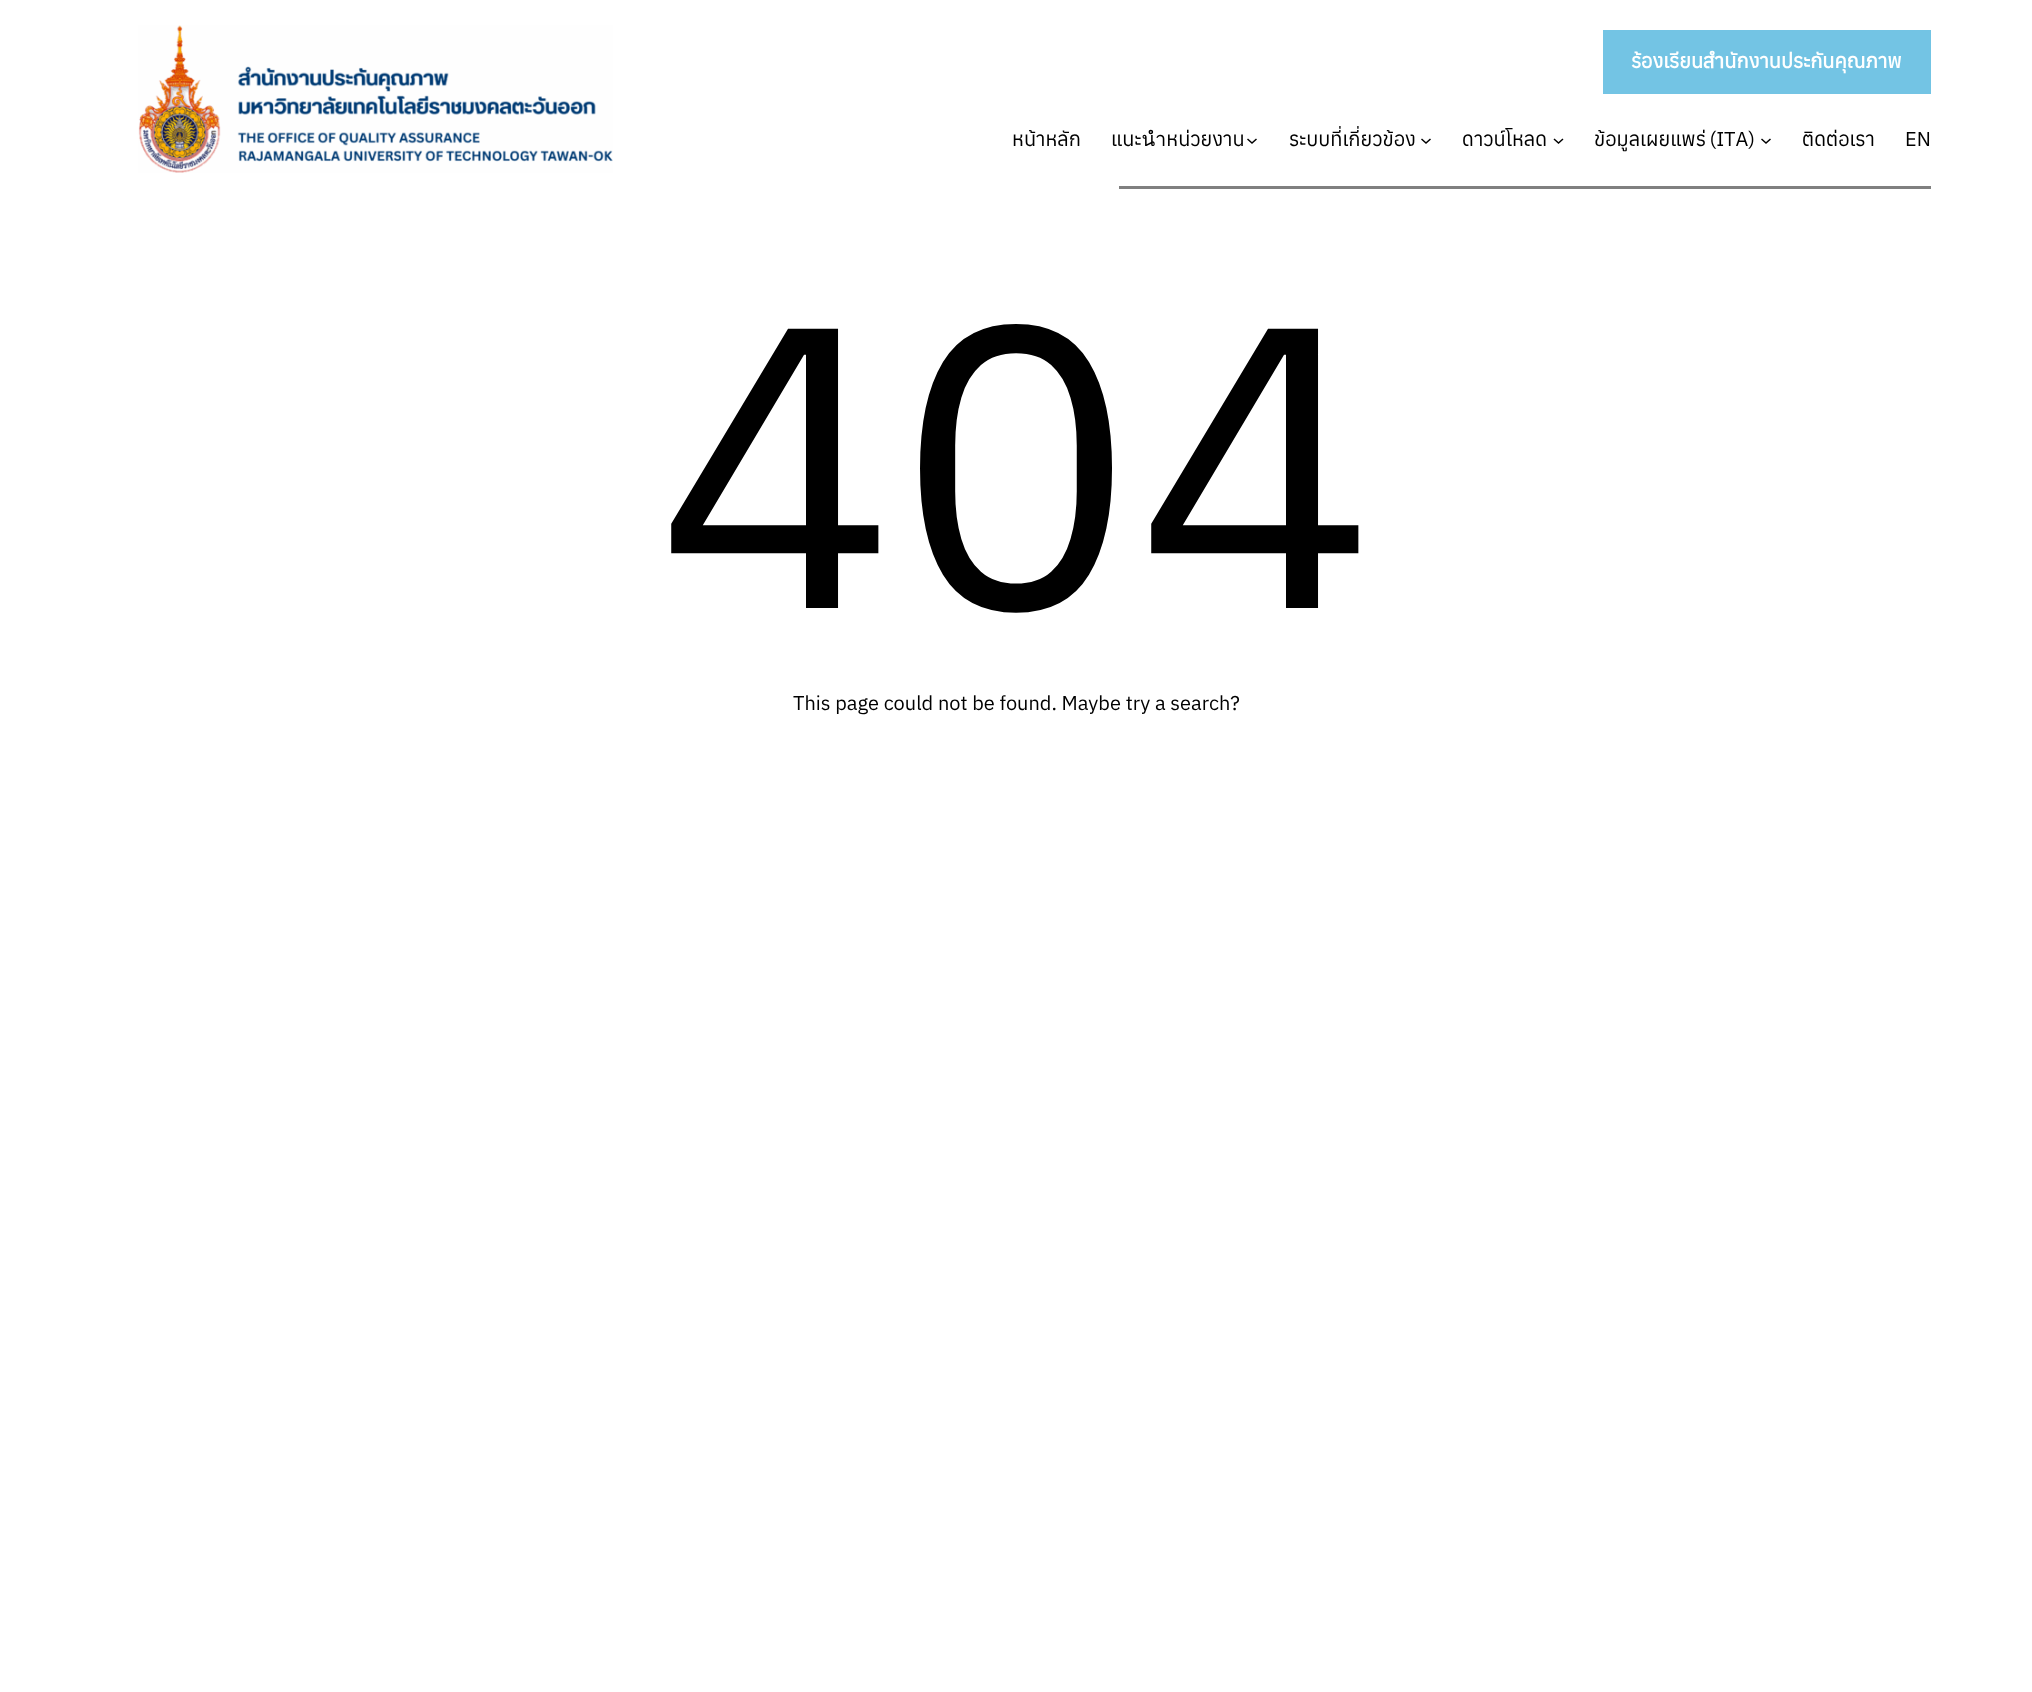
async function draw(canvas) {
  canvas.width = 2032;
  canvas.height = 1692;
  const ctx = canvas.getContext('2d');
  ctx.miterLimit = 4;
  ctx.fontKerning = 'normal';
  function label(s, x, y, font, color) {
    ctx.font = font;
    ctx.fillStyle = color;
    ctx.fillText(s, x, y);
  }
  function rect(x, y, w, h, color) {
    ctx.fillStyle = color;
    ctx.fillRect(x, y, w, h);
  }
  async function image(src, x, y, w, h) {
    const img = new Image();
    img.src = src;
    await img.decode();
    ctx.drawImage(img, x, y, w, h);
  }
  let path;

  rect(0, 0, 2032, 1692, '#fff');
  await image('assets/img1.png', 138, 25, 475, 148);
  rect(1603, 30, 328, 64, '#73c4e4');
  label('ร้องเรียนสำนักงานประกันคุณภาพ', 1631, 68, 'bold 20px Anuphan', '#fff');
  label('หน้าหลัก', 1012, 146, '20px Anuphan', '#000');
  label('แนะนำหน่วยงาน', 1111, 146, '20px Anuphan', '#000');
  path = new Path2D('M1247.5 139L1252 143L1256.5 139');
  ctx.strokeStyle = '#000';
  ctx.lineWidth = 1.5;
  ctx.stroke(path);
  label('ระบบที่เกี่ยวข้อง', 1289, 146, '20px Anuphan', '#000');
  path = new Path2D('M1421.5 139L1426 143L1430.5 139');
  ctx.stroke(path);
  label('ดาวน์โหลด', 1462, 146, '20px Anuphan', '#000');
  path = new Path2D('M1554 139L1558.5 143L1563 139');
  ctx.stroke(path);
  ctx.wordSpacing = '-1px';
  label('ข้อมูลเผยแพร่ (ITA)', 1594, 146, '20px Anuphan', '#000');
  path = new Path2D('M1761.5 139L1766 143L1770.5 139');
  ctx.stroke(path);
  ctx.wordSpacing = '0px';
  label('ติดต่อเรา', 1802, 146, '20px Anuphan', '#000');
  label('EN', 1905, 146, '20px Anuphan', '#000');
  rect(1119, 186, 812, 3, '#808080');
  label('404', 656, 608, '400px Anuphan', '#000');
  label('This page could not be found. Maybe try a search?', 793, 710, '20px Anuphan', '#000');
}

draw(document.querySelector('canvas'));
